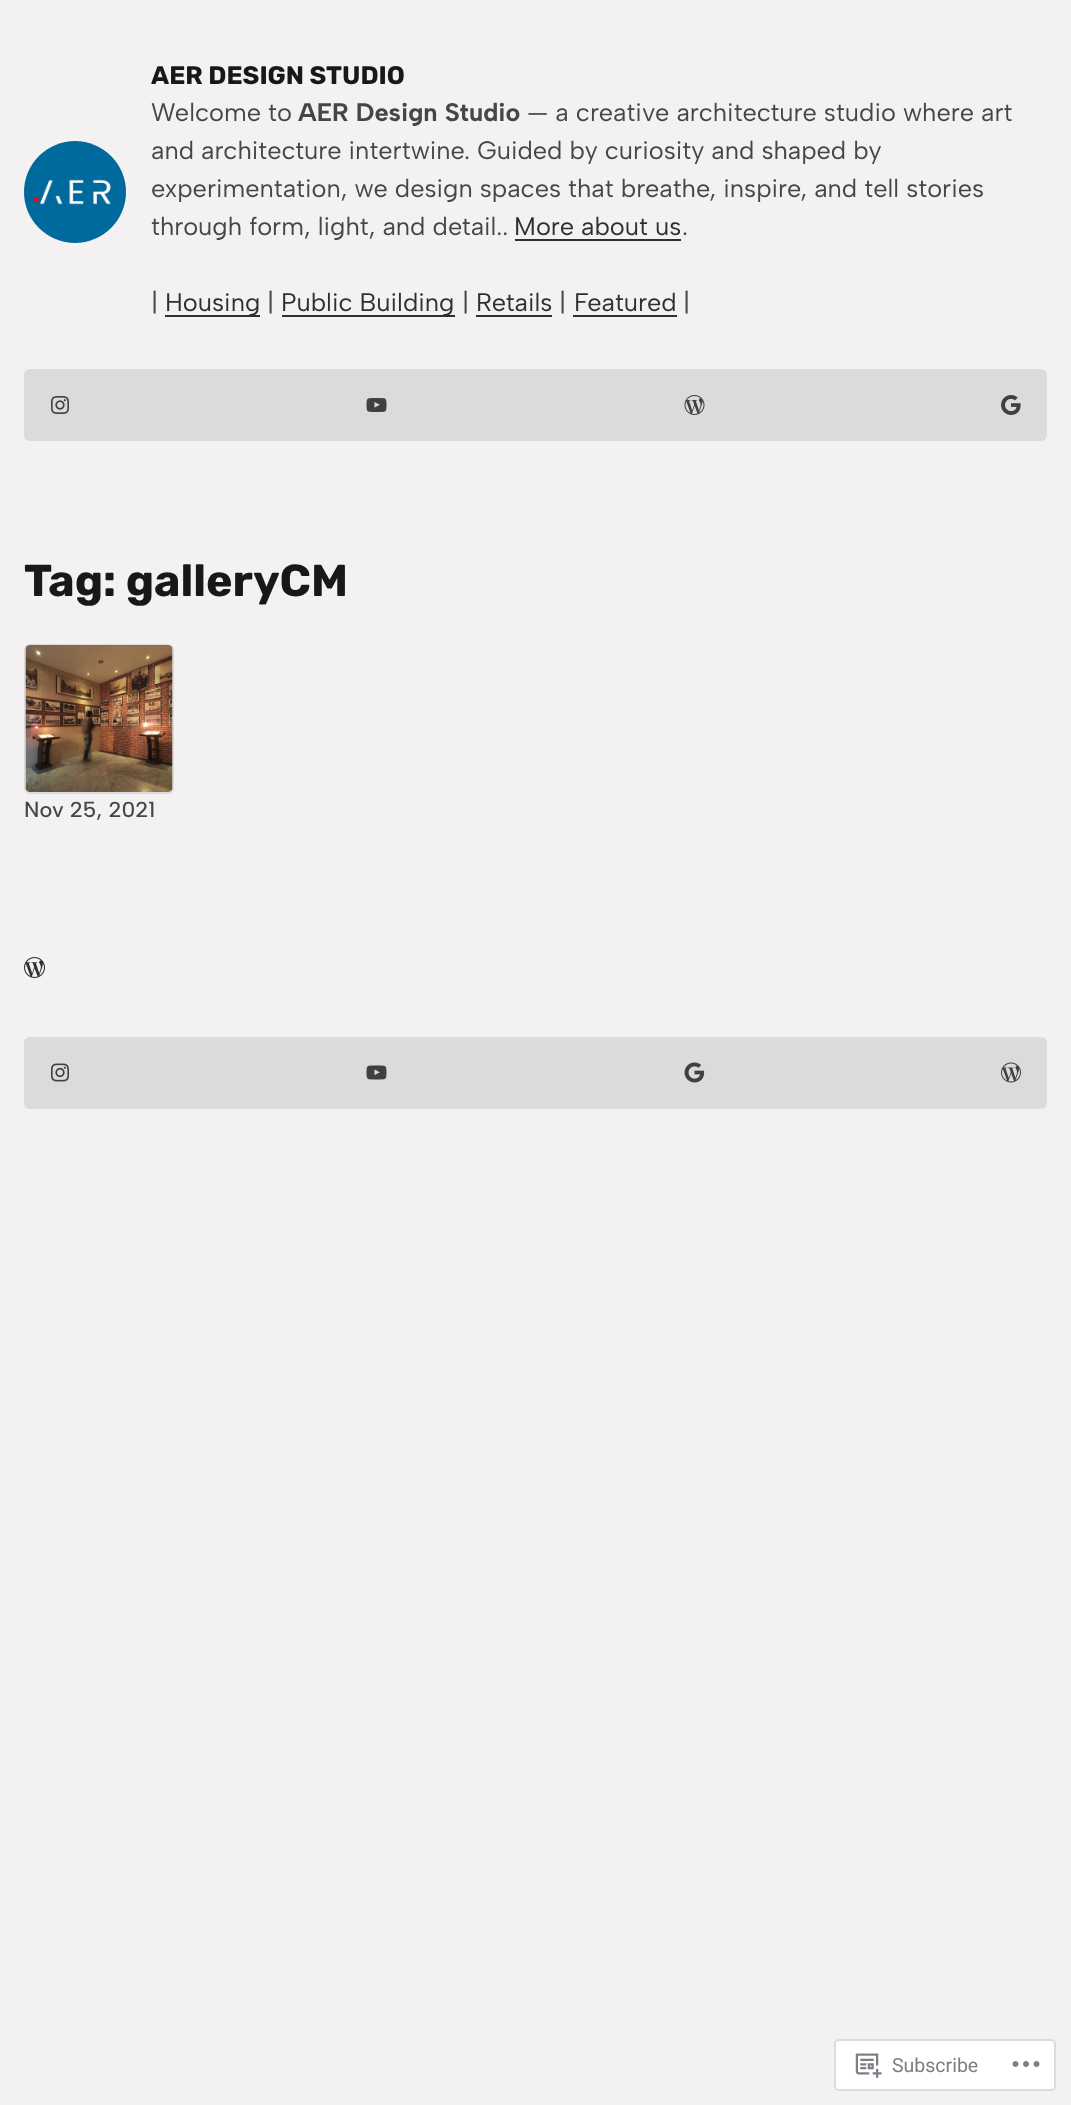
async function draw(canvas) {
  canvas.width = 1071;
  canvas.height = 2105;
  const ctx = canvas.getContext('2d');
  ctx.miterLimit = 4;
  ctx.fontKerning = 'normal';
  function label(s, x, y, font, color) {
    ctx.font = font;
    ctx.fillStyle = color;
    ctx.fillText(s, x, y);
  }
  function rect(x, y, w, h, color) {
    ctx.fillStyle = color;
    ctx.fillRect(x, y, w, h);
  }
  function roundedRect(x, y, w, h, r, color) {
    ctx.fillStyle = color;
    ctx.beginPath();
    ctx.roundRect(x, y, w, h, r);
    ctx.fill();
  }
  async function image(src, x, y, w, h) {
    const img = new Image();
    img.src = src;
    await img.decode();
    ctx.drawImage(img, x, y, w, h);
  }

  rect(0, 0, 1071, 2105, '#f3f1f1');
  await image('assets/img1.png', 24, 141, 102, 102);
  label('AER DESIGN STUDIO', 151, 84, 'bold 25.35px Rubik', '#181719');
  label('Welcome to', 151, 121, '25.35px Albert Sans', '#464547');
  label('AER Design Studio', 298, 121, 'bold 25.35px Albert Sans', '#464547');
  label('— a creative architecture studio where art', 527, 121, '25.35px Albert Sans', '#464547');
  label('and architecture intertwine. Guided by curiosity and shaped by', 151, 159, '25.35px Albert Sans', '#464547');
  label('experimentation, we design spaces that breathe, inspire, and tell stories', 151, 197, '25.35px Albert Sans', '#464547');
  label('through form, light, and detail..', 151, 235, '25.35px Albert Sans', '#464547');
  label('More about us', 514, 235, '25.35px Albert Sans', '#2f2e30');
  rect(515, 239, 166, 2, '#2f2e30');
  label('.', 682, 235, '25.35px Albert Sans', '#464547');
  label('|', 151, 311, '25.35px Albert Sans', '#464547');
  rect(165, 315, 95, 2, '#2f2e30');
  label('Housing', 165, 311, '25.35px Albert Sans', '#2f2e30');
  label('|', 267, 311, '25.35px Albert Sans', '#464547');
  rect(282, 315, 173, 2, '#2f2e30');
  label('Public Building', 281, 311, '25.35px Albert Sans', '#2f2e30');
  label('|', 462, 311, '25.35px Albert Sans', '#464547');
  label('Retails', 476, 311, '25.35px Albert Sans', '#2f2e30');
  rect(476, 315, 76, 2, '#2f2e30');
  label('|', 559, 311, '25.35px Albert Sans', '#464547');
  label('Featured', 574, 311, '25.35px Albert Sans', '#2f2e30');
  rect(573, 315, 104, 2, '#2f2e30');
  label('|', 683, 311, '25.35px Albert Sans', '#464547');
  roundedRect(24, 369, 1023, 72, 6, '#dcdada');
  await image('assets/img2.png', 51, 396, 18, 18);
  await image('assets/img3.png', 366, 398, 21, 14);
  await image('assets/img4.png', 684, 395, 21, 20);
  await image('assets/img5.png', 1001, 395, 20, 20);
  label('Tag: galleryCM', 24, 596, 'bold 44.75px Rubik', '#181719');
  ctx.beginPath();
  ctx.roundRect(25, 645, 148, 148, 5);
  ctx.strokeStyle = '#dcdada';
  ctx.lineWidth = 2;
  ctx.stroke();
  await image('assets/img6.png', 25, 645, 148, 147);
  label('Nov 25, 2021', 24, 817, '500 21.75px Albert Sans', '#464547');
  await image('assets/img7.png', 24, 957, 21, 21);
  roundedRect(24, 1037, 1023, 72, 6, '#dcdada');
  await image('assets/img8.png', 51, 1063, 18, 19);
  await image('assets/img9.png', 366, 1065, 21, 15);
  await image('assets/img10.png', 684, 1062, 21, 21);
  await image('assets/img11.png', 1001, 1062, 20, 21);
  ctx.fillStyle = '#fff';
  ctx.beginPath();
  ctx.roundRect(835, 2040, 220, 50, 4);
  ctx.fill();
  ctx.strokeStyle = '#dcdcde';
  ctx.stroke();
  await image('assets/img12.png', 855, 2053, 27, 25);
  label('Subscribe', 892, 2072, '19.5px Roboto', '#7a7e84');
  await image('assets/img13.png', 1012, 2061, 28, 6);
}

draw(document.querySelector('canvas'));
